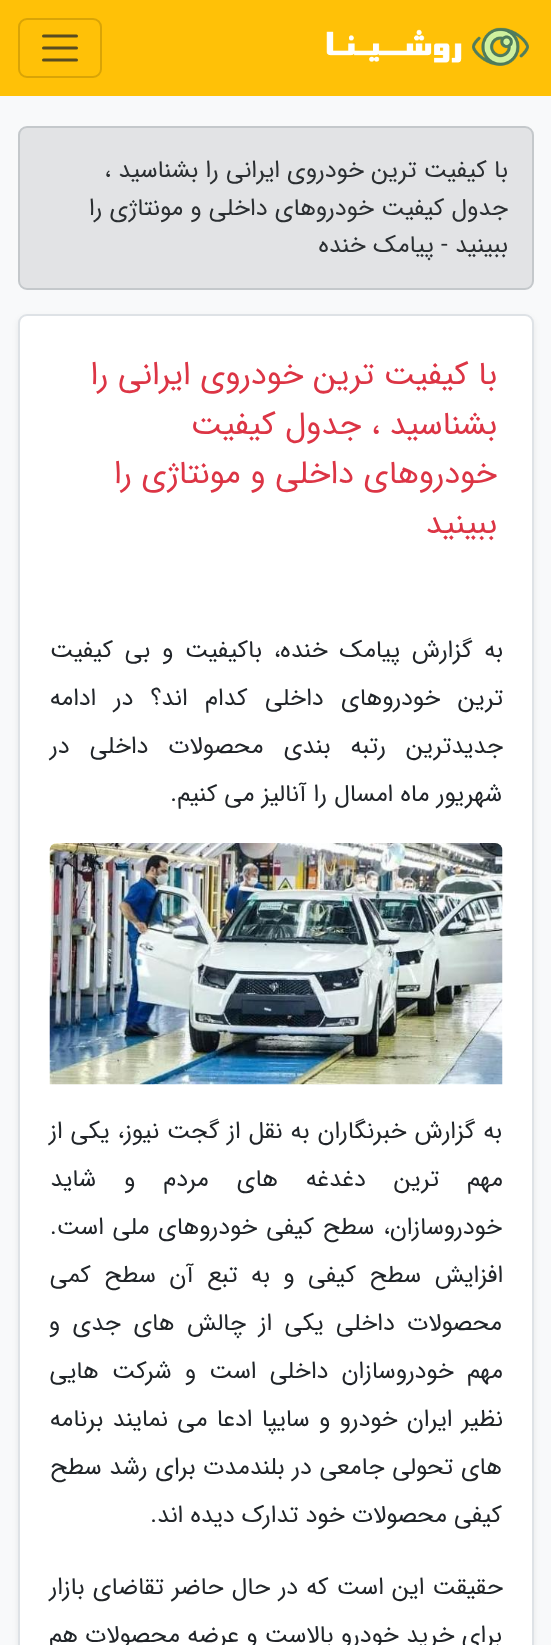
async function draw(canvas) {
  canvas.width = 551;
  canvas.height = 1645;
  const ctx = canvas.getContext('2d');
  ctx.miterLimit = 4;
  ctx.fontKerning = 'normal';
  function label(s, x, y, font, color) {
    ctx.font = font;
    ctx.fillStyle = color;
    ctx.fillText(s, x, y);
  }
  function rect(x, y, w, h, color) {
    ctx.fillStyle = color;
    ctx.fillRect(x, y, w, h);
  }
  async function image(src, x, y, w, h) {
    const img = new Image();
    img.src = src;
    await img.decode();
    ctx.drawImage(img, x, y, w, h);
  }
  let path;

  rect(0, 0, 551, 1645, '#f8f9fa');
  rect(0, 0, 551, 96, '#ffc107');
  await image('assets/img1.png', 326, 27, 203, 39);
  ctx.beginPath();
  ctx.roundRect(19, 19, 82, 58, 8);
  ctx.strokeStyle = '#d9a406';
  ctx.lineWidth = 2;
  ctx.stroke();
  path = new Path2D('M43.5 36H76.5M43.5 48H76.5M43.5 60H76.5');
  ctx.strokeStyle = '#594c21';
  ctx.lineWidth = 3;
  ctx.lineCap = 'round';
  ctx.stroke(path);
  ctx.fillStyle = '#e2e3e5';
  ctx.beginPath();
  ctx.roundRect(19, 127, 514, 162, 8);
  ctx.fill();
  ctx.strokeStyle = '#c4c8cb';
  ctx.lineWidth = 2;
  ctx.stroke();
  ctx.direction = 'rtl';
  label('با کیفیت ترین خودروی ایرانی را بشناسید ،', 508, 177, '24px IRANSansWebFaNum', '#2b2f32');
  label('جدول کیفیت خودروهای داخلی و مونتاژی را', 508, 215, '24px IRANSansWebFaNum', '#2b2f32');
  label('ببینید - پیامک خنده', 508, 252, '24px IRANSansWebFaNum', '#2b2f32');
  ctx.fillStyle = '#00000012';
  ctx.filter = 'blur(3px)';
  ctx.beginPath();
  ctx.roundRect(18, 317, 516, 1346, 9);
  ctx.fill();
  ctx.filter = 'none';
  ctx.fillStyle = '#fff';
  ctx.beginPath();
  ctx.roundRect(19, 315, 514, 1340, 8);
  ctx.fill();
  ctx.strokeStyle = '#dee2e6';
  ctx.stroke();
  label('با کیفیت ترین خودروی ایرانی را', 497, 384, '32.25px IRANSansWebFaNum', '#dc3545');
  label('بشناسید ، جدول کیفیت', 497, 434, '32.25px IRANSansWebFaNum', '#dc3545');
  label('خودروهای داخلی و مونتاژی را', 497, 483, '32.25px IRANSansWebFaNum', '#dc3545');
  label('ببینید', 497, 533, '32.25px IRANSansWebFaNum', '#dc3545');
  ctx.wordSpacing = '4.5px';
  label('به گزارش پیامک خنده، باکیفیت و بی کیفیت', 503, 657, '24px IRANSansWebFaNum', '#212529');
  ctx.wordSpacing = '10.25px';
  label('ترین خودروهای داخلی کدام اند؟ در ادامه', 503, 705, '24px IRANSansWebFaNum', '#212529');
  ctx.wordSpacing = '13px';
  label('جدیدترین رتبه بندی محصولات داخلی در', 503, 753, '24px IRANSansWebFaNum', '#212529');
  ctx.wordSpacing = '0px';
  label('شهریور ماه امسال را آنالیز می کنیم.', 502, 801, '24px IRANSansWebFaNum', '#212529');
  await image('assets/img2.png', 49, 843, 454, 242);
  ctx.wordSpacing = '0.75px';
  label('به گزارش خبرنگاران به نقل از گجت نیوز، یکی از', 502, 1138, '24px IRANSansWebFaNum', '#212529');
  ctx.wordSpacing = '20.75px';
  label('مهم ترین دغدغه های مردم و شاید', 503, 1186, '24px IRANSansWebFaNum', '#212529');
  ctx.wordSpacing = '1.5px';
  label('خودروسازان، سطح کیفی خودروهای ملی است.', 502, 1234, '24px IRANSansWebFaNum', '#212529');
  ctx.wordSpacing = '6.25px';
  label('افزایش سطح کیفی و به تبع آن سطح کمی', 503, 1282, '24px IRANSansWebFaNum', '#212529');
  ctx.wordSpacing = '5.25px';
  label('محصولات داخلی یکی از چالش های جدی و', 502, 1330, '24px IRANSansWebFaNum', '#212529');
  ctx.wordSpacing = '6px';
  label('مهم خودروسازان داخلی است و شرکت هایی', 503, 1378, '24px IRANSansWebFaNum', '#212529');
  ctx.wordSpacing = '2px';
  label('نظیر ایران خودرو و سایپا ادعا می نمایند برنامه', 503, 1426, '24px IRANSansWebFaNum', '#212529');
  ctx.wordSpacing = '0.5px';
  label('های تحولی جامعی در بلندمدت برای رشد سطح', 502, 1474, '24px IRANSansWebFaNum', '#212529');
  ctx.wordSpacing = '0px';
  label('کیفی محصولات خود تدارک دیده اند.', 502, 1522, '24px IRANSansWebFaNum', '#212529');
  ctx.wordSpacing = '1px';
  label('حقیقت این است که در حال حاضر تقاضای بازار', 503, 1594, '24px IRANSansWebFaNum', '#212529');
  ctx.wordSpacing = '0px';
  label('برای خرید خودرو بالاست و عرضه محصولات هم', 502, 1642, '24px IRANSansWebFaNum', '#212529');
}

draw(document.querySelector('canvas'));
